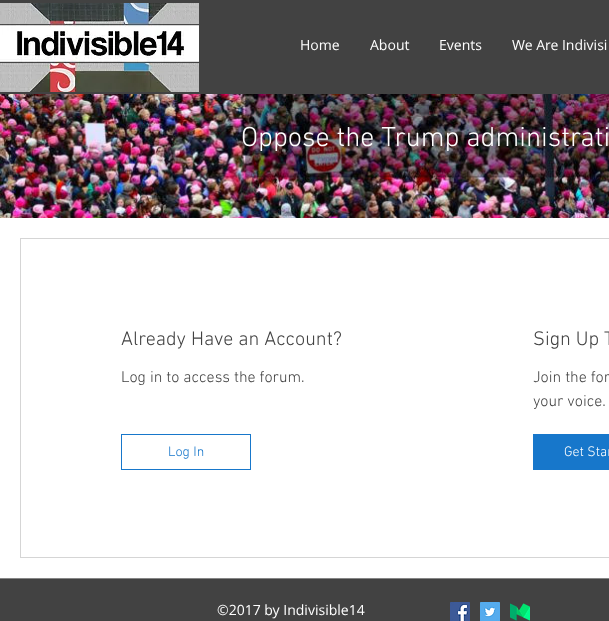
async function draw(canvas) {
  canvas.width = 609;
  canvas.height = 621;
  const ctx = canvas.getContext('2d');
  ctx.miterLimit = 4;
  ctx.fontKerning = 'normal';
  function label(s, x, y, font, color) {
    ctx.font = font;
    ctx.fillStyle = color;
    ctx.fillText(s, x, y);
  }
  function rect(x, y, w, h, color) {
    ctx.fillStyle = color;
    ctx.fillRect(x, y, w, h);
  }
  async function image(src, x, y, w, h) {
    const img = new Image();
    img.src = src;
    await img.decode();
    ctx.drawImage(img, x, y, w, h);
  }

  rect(0, 0, 609, 621, '#fff');
  rect(0, 0, 609, 94, '#424242');
  await image('assets/img1.png', 0, 3, 199, 89);
  label('Home', 300, 50, '14px Open Sans', '#fff');
  label('About', 370, 50, '14px Open Sans', '#fff');
  label('Events', 439, 50, '14px Open Sans', '#fff');
  label('We Are Indivisi', 512, 50, '14px Open Sans', '#fff');
  await image('assets/img2.png', 0, 94, 609, 124);
  label('Oppose the Trump administrati', 241, 146, '300 28px "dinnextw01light"', '#fff');
  ctx.strokeStyle = '#d5d5d5';
  ctx.strokeRect(20.5, 238.5, 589, 319);
  label('Already Have an Account?', 121, 345, '300 20px "dinnextw01light"', '#424242');
  label('Sign Up T', 533, 345, '300 20px "dinnextw01light"', '#424242');
  label('Log in to access the forum.', 121, 382, '300 16px "dinnextw01light"', '#424242');
  label('Join the for', 533, 382, '300 16px "dinnextw01light"', '#424242');
  label('your voice.', 533, 406, '300 16px "dinnextw01light"', '#424242');
  ctx.strokeStyle = '#1777cb';
  ctx.strokeRect(121.5, 434.5, 129, 35);
  label('Log In', 168, 456, '300 14px "dinnextw01light"', '#1777cb');
  rect(533, 434, 76, 36, '#1777cb');
  label('Get Star', 564, 456, '300 14px "dinnextw01light"', '#fff');
  rect(0, 578, 609, 1, '#868686');
  rect(0, 579, 609, 42, '#424242');
  label('©2017 by Indivisible14', 217, 615, '14px Open Sans', '#fff');
  await image('assets/img3.png', 450, 602, 20, 19);
  await image('assets/img4.png', 480, 602, 20, 19);
  await image('assets/img5.png', 510, 603, 20, 18);
}

draw(document.querySelector('canvas'));
